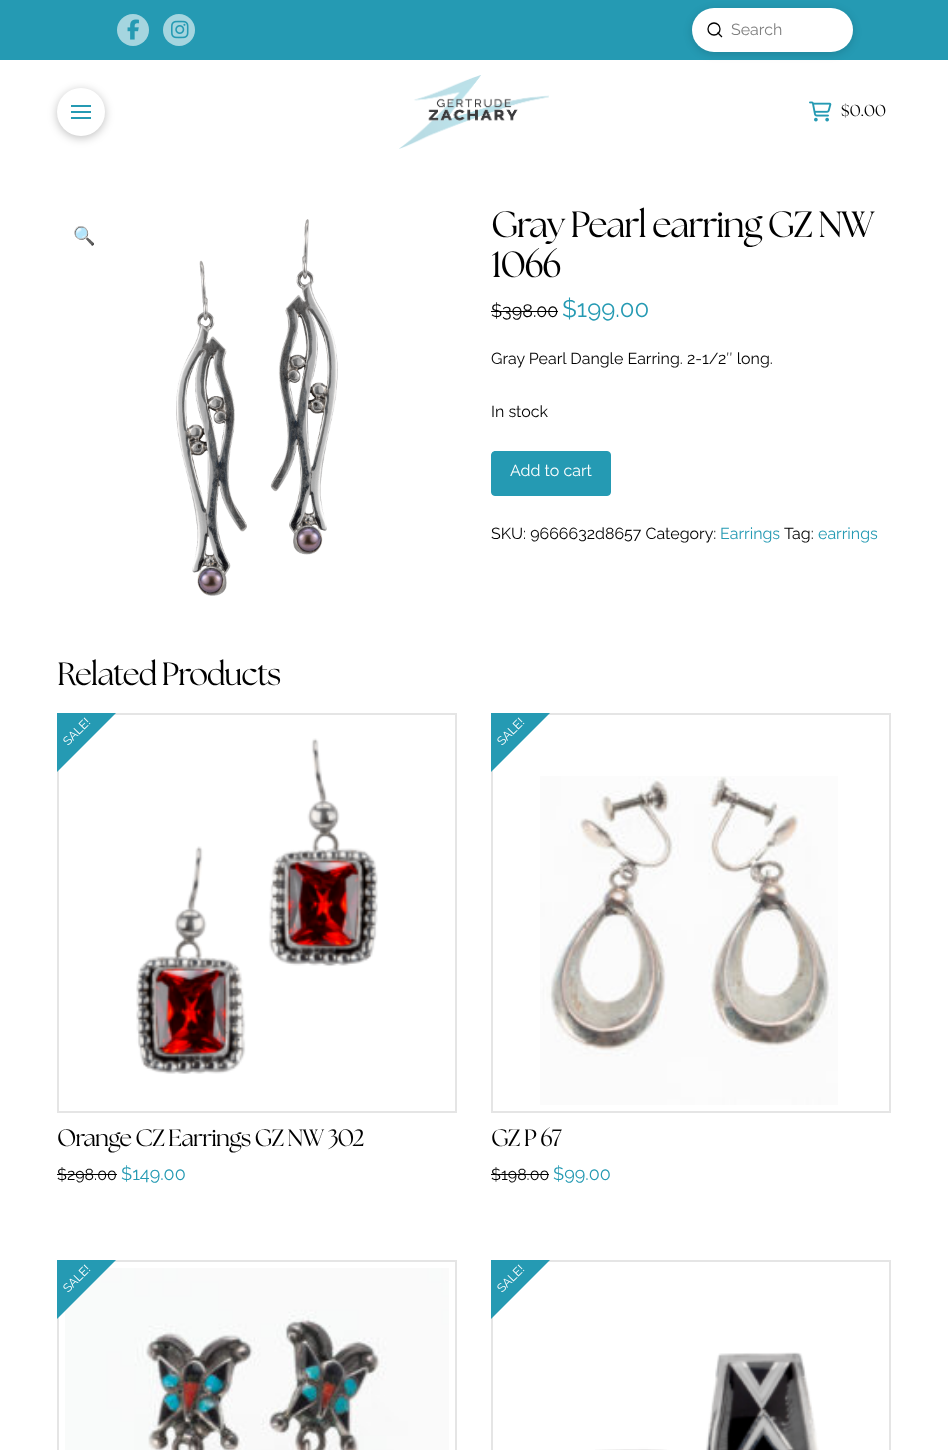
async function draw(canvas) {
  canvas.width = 948;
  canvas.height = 1450;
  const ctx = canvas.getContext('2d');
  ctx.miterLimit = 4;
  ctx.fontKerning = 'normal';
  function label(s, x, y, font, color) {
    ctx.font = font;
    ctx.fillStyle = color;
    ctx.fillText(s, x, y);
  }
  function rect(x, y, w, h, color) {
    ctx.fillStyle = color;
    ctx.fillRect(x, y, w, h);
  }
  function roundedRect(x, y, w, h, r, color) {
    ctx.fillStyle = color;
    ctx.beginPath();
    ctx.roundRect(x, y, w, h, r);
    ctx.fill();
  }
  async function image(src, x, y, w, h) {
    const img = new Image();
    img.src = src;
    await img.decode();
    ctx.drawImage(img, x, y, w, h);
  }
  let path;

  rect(0, 0, 948, 1450, '#fff');
  rect(0, 0, 948, 60, '#259ab3');
  ctx.fillStyle = '#a5d5df';
  ctx.beginPath();
  ctx.arc(133, 30, 16, 0, 2 * Math.PI);
  ctx.fill();
  await image('assets/img1.png', 127, 19, 12, 21);
  ctx.beginPath();
  ctx.arc(179, 30, 16, 0, 2 * Math.PI);
  ctx.fill();
  await image('assets/img2.png', 171, 20, 18, 19);
  ctx.fillStyle = '#00000026';
  ctx.filter = 'blur(4px)';
  ctx.beginPath();
  ctx.roundRect(692, 10, 161, 44, 22);
  ctx.fill();
  ctx.filter = 'none';
  roundedRect(692, 8, 161, 44, 22, '#fff');
  ctx.beginPath();
  ctx.arc(714, 29, 6, 0, 2 * Math.PI);
  ctx.strokeStyle = '#000';
  ctx.lineWidth = 1.3;
  ctx.stroke();
  path = new Path2D('M721.5 36.5L718 33');
  ctx.lineCap = 'square';
  ctx.stroke(path);
  label('Search', 731, 35, '16px Raleway', '#808080');
  ctx.fillStyle = '#00000040';
  ctx.filter = 'blur(5px)';
  ctx.beginPath();
  ctx.roundRect(57, 90, 48, 48, 24);
  ctx.fill();
  ctx.filter = 'none';
  ctx.fillStyle = '#fff';
  ctx.beginPath();
  ctx.arc(81, 112, 24, 0, 2 * Math.PI);
  ctx.fill();
  rect(71, 105, 20, 2, '#259ab3');
  rect(71, 111, 20, 2, '#259ab3');
  rect(71, 117, 20, 2, '#259ab3');
  await image('assets/img3.png', 399, 75, 150, 74);
  await image('assets/img4.png', 809, 101, 23, 21);
  label('$0.00', 841, 116, '16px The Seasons', '#000');
  label('🔍', 73, 242, '18px Noto Color Emoji', '#259ab3');
  await image('assets/img5.png', 176, 219, 162, 377);
  ctx.letterSpacing = '-1.25px';
  label('Gray Pearl earring GZ NW', 491, 237, '36.5px The Seasons', '#000');
  label('1066', 491, 277, '36.5px The Seasons', '#000');
  ctx.letterSpacing = '0px';
  label('$398.00', 491, 317, '18px Raleway', '#000');
  rect(491, 311, 67, 1, '#000');
  label('$199.00', 562, 317, '24px Raleway', '#259ab3');
  label('Gray Pearl Dangle Earring. 2-1/2″ long.', 491, 364, '16px Raleway', '#000');
  label('In stock', 491, 417, '16px Raleway', '#000');
  ctx.fillStyle = '#259ab3';
  ctx.beginPath();
  ctx.roundRect(491.5, 451.5, 119, 44, 3.5);
  ctx.fill();
  ctx.strokeStyle = '#259ab3';
  ctx.lineWidth = 1;
  ctx.stroke();
  label('Add to cart', 510, 476, '16px Raleway', '#fff');
  label('SKU: 9666632d8657 Category:', 491, 539, '16px Raleway', '#000');
  label('Earrings', 720, 539, '16px Raleway', '#259ab3');
  label('Tag:', 784, 539, '16px Raleway', '#000');
  label('earrings', 818, 539, '16px Raleway', '#259ab3');
  ctx.letterSpacing = '-1.1px';
  label('Related Products', 57, 685, '32px The Seasons', '#000');
  ctx.strokeStyle = '#e5e5e5';
  ctx.lineWidth = 2;
  ctx.strokeRect(58, 714, 398, 398);
  await image('assets/img6.png', 136, 738, 242, 336);
  ctx.save();
  ctx.beginPath();
  ctx.rect(57, 713, 400, 470);
  ctx.clip();
  ctx.fillStyle = '#259ab3';
  path = new Path2D('M-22 738L84 632L140 689L34 795Z');
  ctx.fill(path);
  ctx.restore();
  ctx.letterSpacing = '0px';
  ctx.font = '12px Raleway';
  ctx.fillStyle = '#fff';
  ctx.save();
  ctx.translate(68, 746);
  ctx.rotate(-45 * Math.PI / 180);
  ctx.fillText('SALE!', 0, 0);
  ctx.restore();
  ctx.letterSpacing = '-0.8px';
  label('Orange CZ Earrings GZ NW 302', 57, 1146, '23.75px The Seasons', '#000');
  ctx.letterSpacing = '0px';
  label('$298.00', 57, 1180, '16px Raleway', '#000');
  rect(57, 1174, 60, 1, '#000');
  label('$149.00', 121, 1180, '18px Raleway', '#259ab3');
  ctx.strokeRect(492, 714, 398, 398);
  await image('assets/img7.png', 540, 776, 298, 329);
  ctx.save();
  ctx.beginPath();
  ctx.rect(491, 713, 400, 470);
  ctx.clip();
  path = new Path2D('M411 738L517 632L574 689L468 795Z');
  ctx.fill(path);
  ctx.restore();
  ctx.font = '12px Raleway';
  ctx.fillStyle = '#fff';
  ctx.save();
  ctx.translate(502, 746);
  ctx.rotate(-45 * Math.PI / 180);
  ctx.fillText('SALE!', 0, 0);
  ctx.restore();
  ctx.letterSpacing = '-0.8px';
  label('GZ P 67', 491, 1146, '23.75px The Seasons', '#000');
  ctx.letterSpacing = '0px';
  label('$198.00', 491, 1180, '16px Raleway', '#000');
  rect(491, 1174, 58, 1, '#000');
  label('$99.00', 553, 1180, '18px Raleway', '#259ab3');
  ctx.strokeRect(58, 1261, 398, 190);
  await image('assets/img8.png', 65, 1268, 384, 182);
  ctx.save();
  ctx.beginPath();
  ctx.rect(57, 1260, 400, 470);
  ctx.clip();
  path = new Path2D('M-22 1286L84 1180L140 1236L34 1342Z');
  ctx.fill(path);
  ctx.restore();
  ctx.font = '12px Raleway';
  ctx.fillStyle = '#fff';
  ctx.save();
  ctx.translate(68, 1293);
  ctx.rotate(-45 * Math.PI / 180);
  ctx.fillText('SALE!', 0, 0);
  ctx.restore();
  ctx.strokeRect(492, 1261, 398, 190);
  await image('assets/img9.png', 595, 1352, 224, 98);
  ctx.save();
  ctx.beginPath();
  ctx.rect(491, 1260, 400, 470);
  ctx.clip();
  ctx.fillStyle = '#259ab3';
  path = new Path2D('M411 1286L517 1180L574 1236L468 1342Z');
  ctx.fill(path);
  ctx.restore();
  ctx.save();
  ctx.translate(502, 1293);
  ctx.rotate(-45 * Math.PI / 180);
  ctx.fillText('SALE!', 0, 0);
  ctx.restore();
}

draw(document.querySelector('canvas'));
